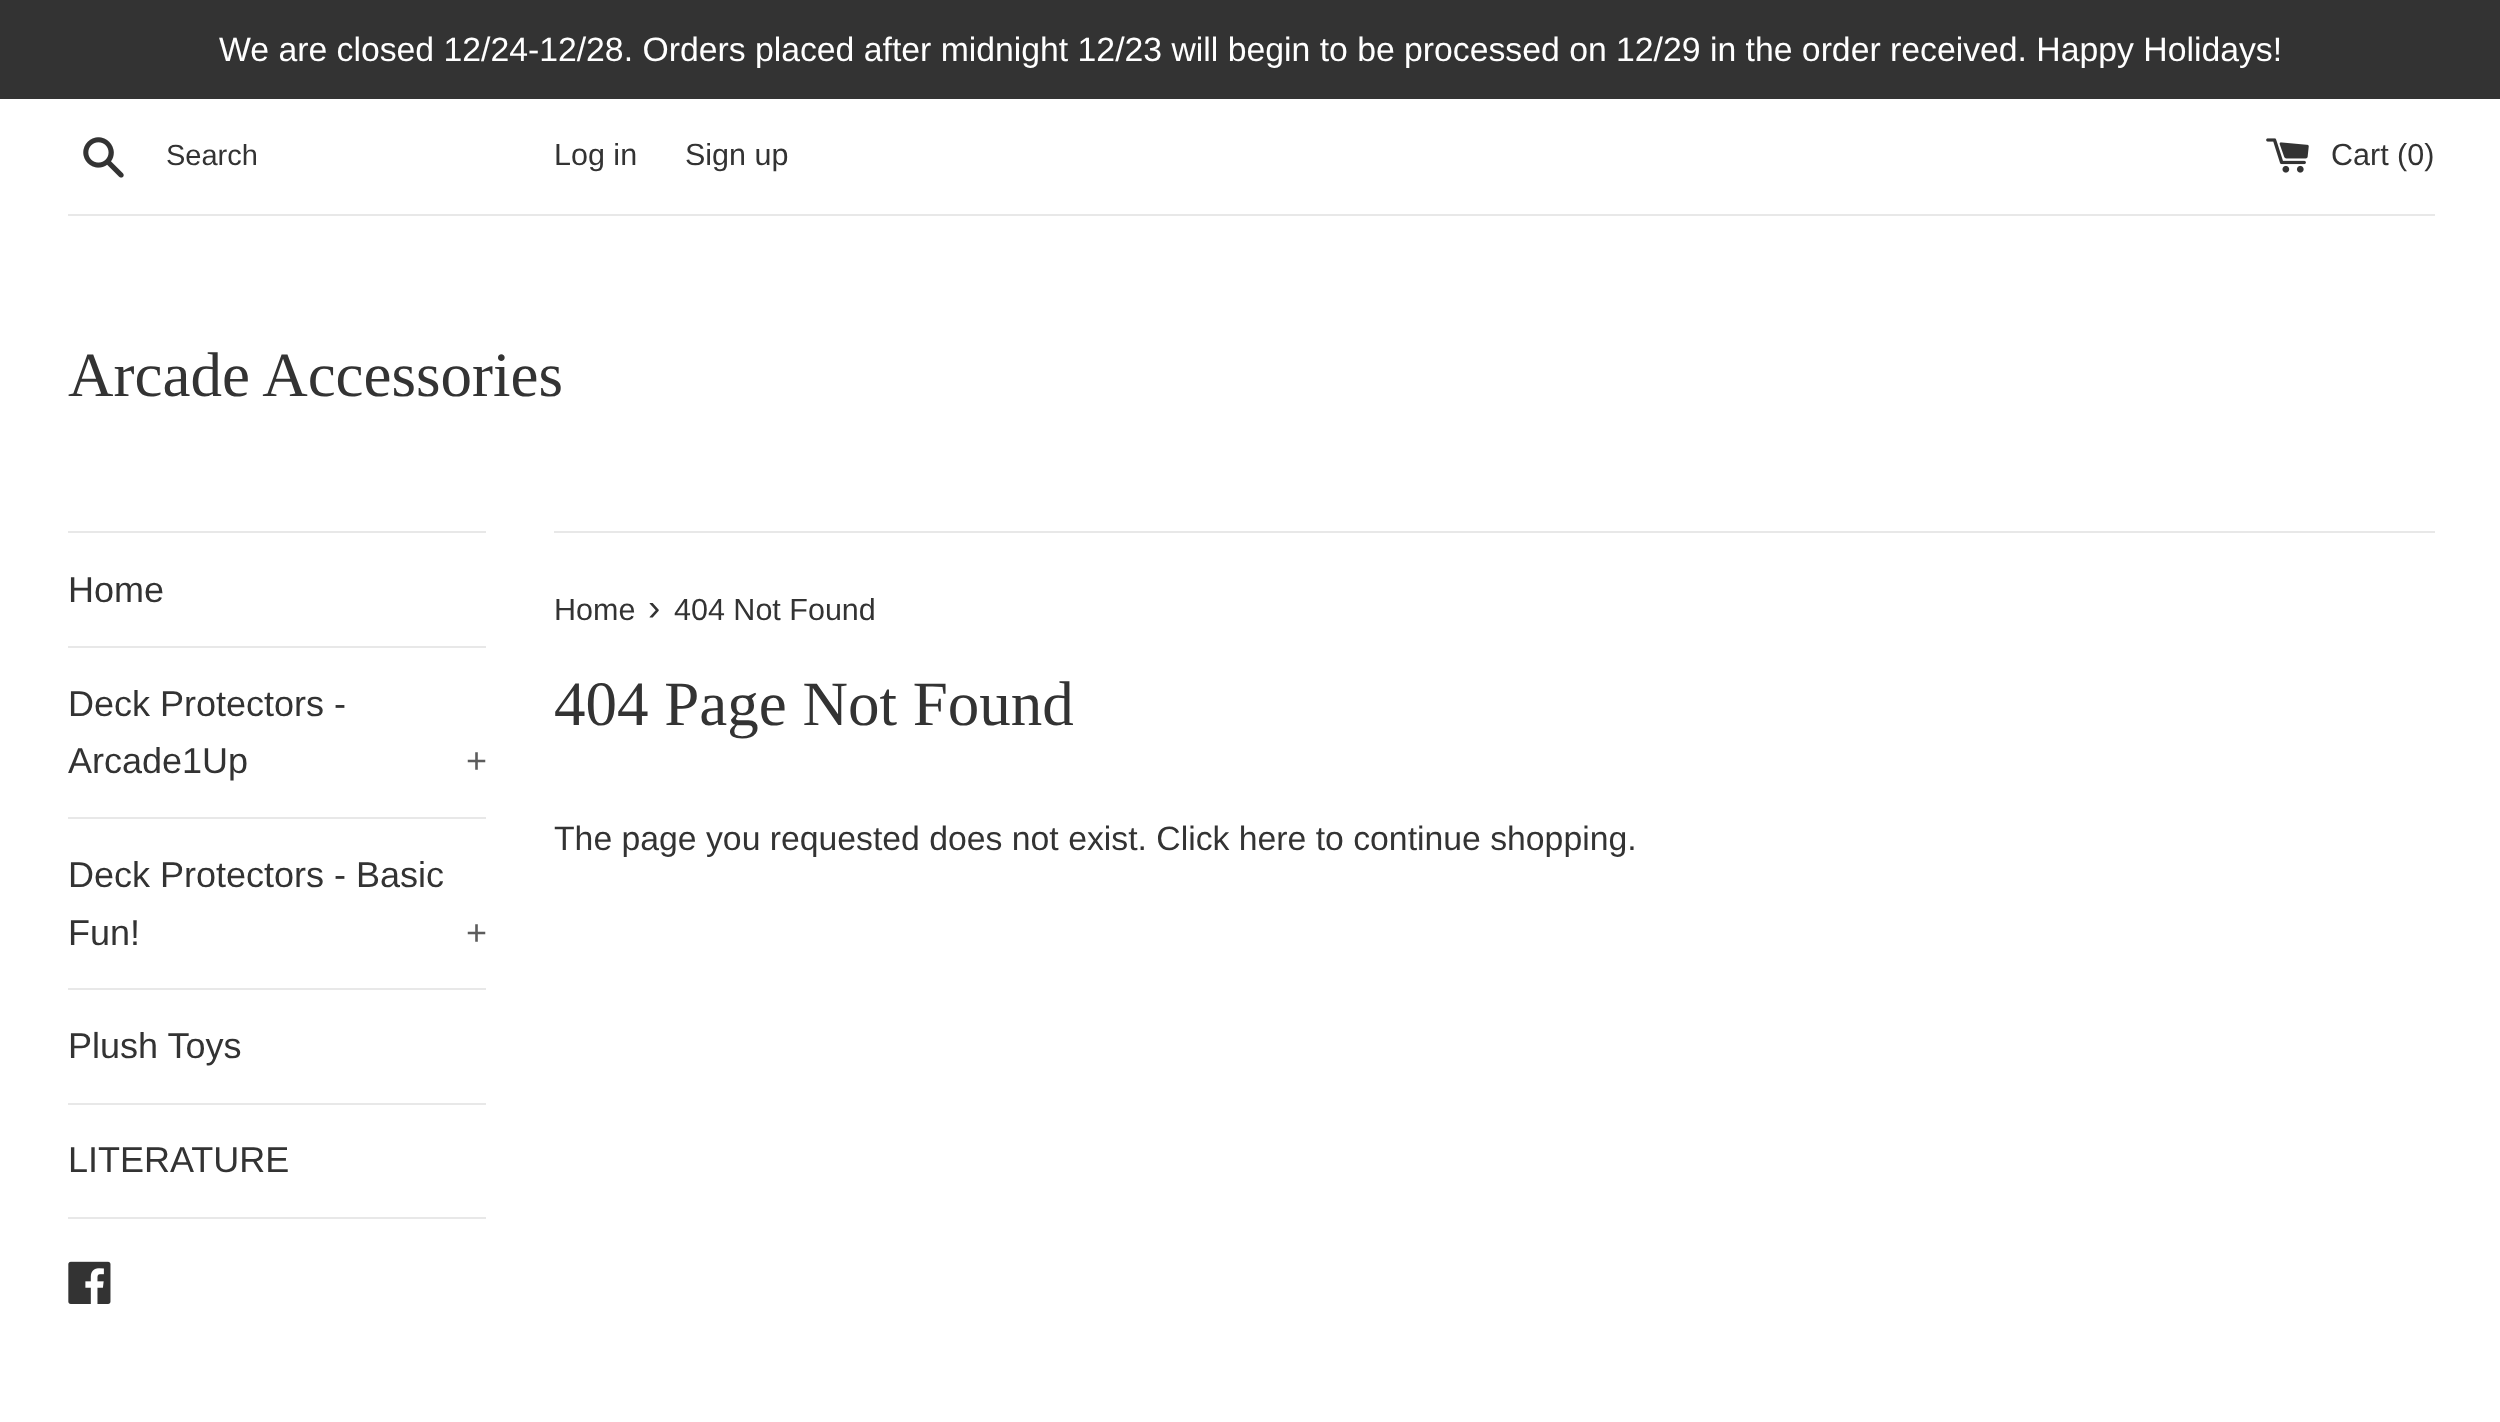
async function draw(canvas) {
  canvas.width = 2500;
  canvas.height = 1422;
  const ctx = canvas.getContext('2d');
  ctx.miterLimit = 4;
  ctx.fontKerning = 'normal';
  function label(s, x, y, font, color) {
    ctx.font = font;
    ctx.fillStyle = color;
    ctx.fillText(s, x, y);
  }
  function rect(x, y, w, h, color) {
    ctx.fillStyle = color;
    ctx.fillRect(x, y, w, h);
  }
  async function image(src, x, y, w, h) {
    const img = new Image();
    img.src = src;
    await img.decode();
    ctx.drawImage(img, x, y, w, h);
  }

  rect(0, 0, 2500, 1422, '#fff');
  rect(0, 0, 2500, 99, '#333');
  label('We are closed 12/24-12/28. Orders placed after midnight 12/23 will begin to be processed on 12/29 in the order received. Happy Holidays!', 219, 61, '33.75px Liberation Sans', '#fff');
  await image('assets/img1.png', 83, 137, 41, 41);
  label('Search', 166, 165, '29px Liberation Sans', '#333');
  label('Log in', 554, 165, '30.5px Liberation Sans', '#333');
  label('Sign up', 685, 165, '30.5px Liberation Sans', '#333');
  await image('assets/img2.png', 2266, 138, 43, 35);
  label('Cart (0)', 2331, 165, '30.5px Liberation Sans', '#333');
  rect(68, 214, 2367, 2, '#e8e8e8');
  label('Arcade Accessories', 68, 396, '63px Liberation Serif', '#333');
  rect(68, 531, 418, 2, '#e8e8e8');
  rect(68, 646, 418, 2, '#e8e8e8');
  label('Home', 68, 602, '36px Liberation Sans', '#333');
  rect(68, 817, 418, 2, '#e8e8e8');
  label('Deck Protectors -', 68, 716, '36px Liberation Sans', '#333');
  label('Arcade1Up', 68, 773, '36px Liberation Sans', '#333');
  label('+', 466, 773, '36px Liberation Sans', '#5c5c5c');
  rect(68, 988, 418, 2, '#e8e8e8');
  label('Deck Protectors - Basic', 68, 887, '36px Liberation Sans', '#333');
  label('Fun!', 68, 945, '36px Liberation Sans', '#333');
  label('+', 466, 945, '36px Liberation Sans', '#5c5c5c');
  rect(68, 1103, 418, 2, '#e8e8e8');
  label('Plush Toys', 68, 1058, '36px Liberation Sans', '#333');
  rect(68, 1217, 418, 2, '#e8e8e8');
  label('LITERATURE', 68, 1172, '36px Liberation Sans', '#333');
  await image('assets/img3.png', 68, 1261, 43, 43);
  rect(554, 531, 1881, 2, '#e8e8e8');
  label('Home', 554, 620, '30.5px Liberation Sans', '#333');
  label('›', 648, 620, '37px Liberation Sans', '#333');
  label('404 Not Found', 674, 620, '30.5px Liberation Sans', '#333');
  label('404 Page Not Found', 554, 725, '63px Liberation Serif', '#333');
  label('The page you requested does not exist. Click here to continue shopping.', 554, 850, '33.75px Liberation Sans', '#333');
}

draw(document.querySelector('canvas'));
